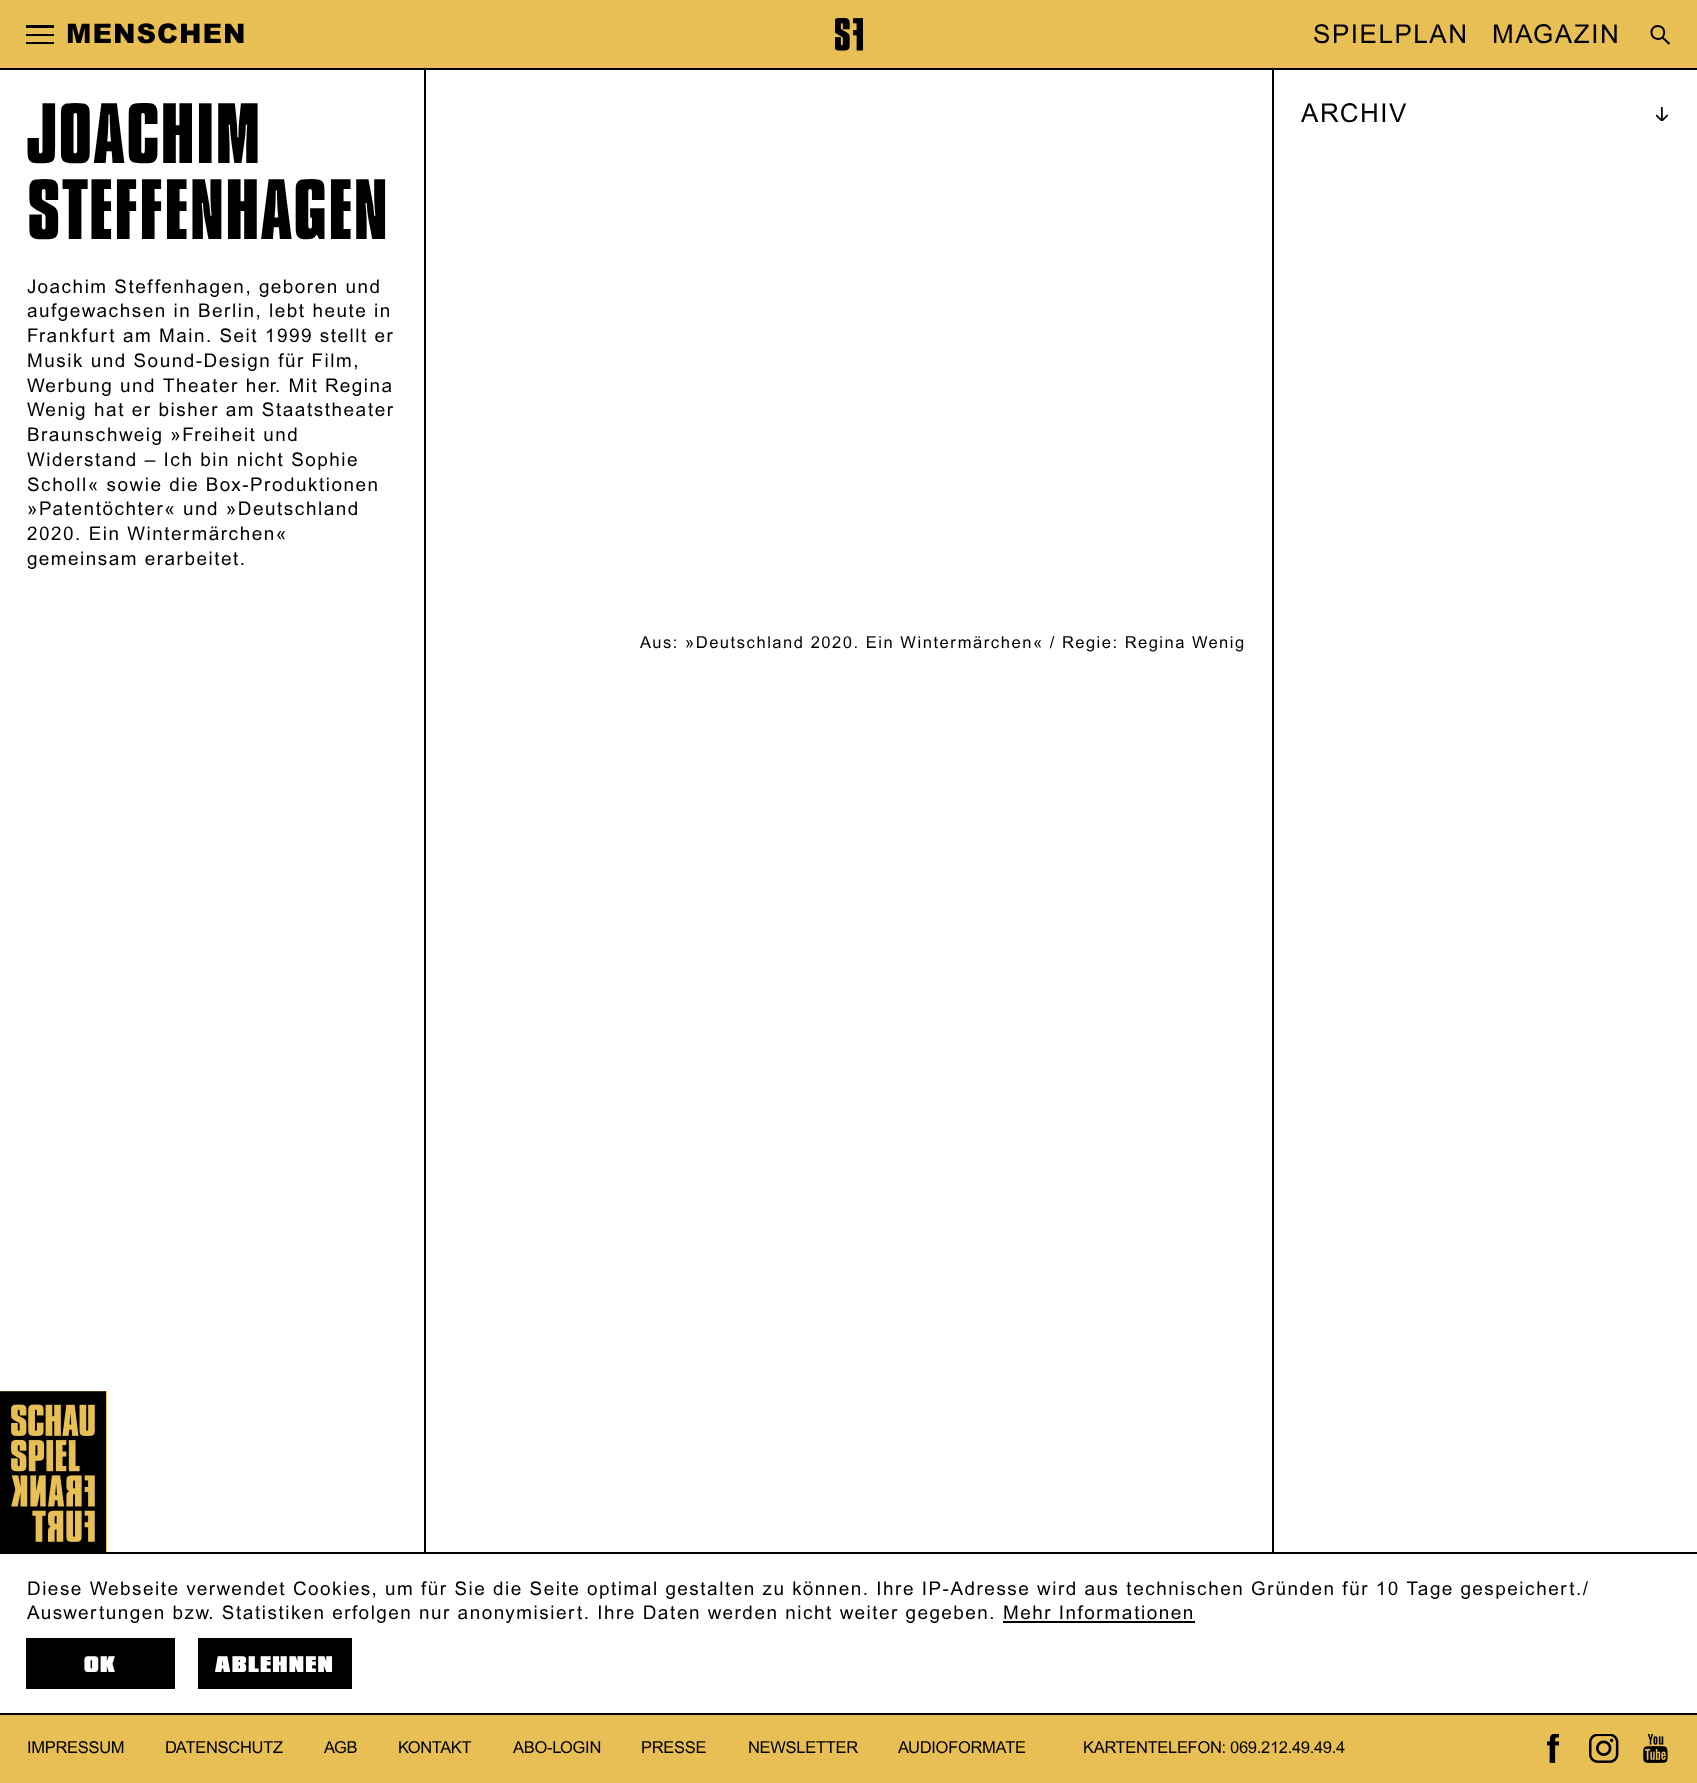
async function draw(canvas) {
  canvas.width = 1697;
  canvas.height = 1783;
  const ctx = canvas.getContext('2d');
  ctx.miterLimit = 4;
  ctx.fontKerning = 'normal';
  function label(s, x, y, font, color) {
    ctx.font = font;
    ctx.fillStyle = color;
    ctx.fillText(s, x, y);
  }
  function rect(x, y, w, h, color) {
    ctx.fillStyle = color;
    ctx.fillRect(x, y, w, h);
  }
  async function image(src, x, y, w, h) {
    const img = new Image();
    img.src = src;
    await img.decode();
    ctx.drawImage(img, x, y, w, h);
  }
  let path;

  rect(0, 0, 1697, 1783, '#fff');
  rect(0, 0, 1697, 68, '#e7bf55');
  rect(0, 68, 1697, 2, '#000');
  rect(26, 25, 28, 3, '#000');
  rect(26, 34, 28, 2, '#000');
  rect(26, 42, 28, 2, '#000');
  ctx.letterSpacing = '1px';
  label('MENSCHEN', 66, 43, '900 27px Arial', '#000');
  await image('assets/img1.png', 835, 18, 28, 33);
  ctx.letterSpacing = '1.54px';
  label('SPIELPLAN', 1313, 43, '26px Arial', '#000');
  label('MAGAZIN', 1492, 43, '26px Arial', '#000');
  path = new Path2D('M1658 39C1666 39 1666.5 26.5 1658 26C1649.5 25.5 1649 39 1658 39ZM1662.5 37.5L1669.5 44');
  ctx.strokeStyle = '#000';
  ctx.lineWidth = 2;
  ctx.stroke(path);
  rect(424, 70, 2, 1482, '#000');
  ctx.letterSpacing = '0.9px';
  label('JOACHIM', 27, 163, 'bold 89.5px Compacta', '#000');
  label('STEFFENHAGEN', 27, 239, 'bold 89.5px Compacta', '#000');
  ctx.letterSpacing = '1.54px';
  label('Joachim Steffenhagen, geboren und', 27, 293, '18.85px Arial', '#000');
  label('aufgewachsen in Berlin, lebt heute in', 27, 317, '18.85px Arial', '#000');
  label('Frankfurt am Main. Seit 1999 stellt er', 27, 342, '18.85px Arial', '#000');
  label('Musik und Sound-Design für Film,', 27, 367, '18.85px Arial', '#000');
  label('Werbung und Theater her. Mit Regina', 27, 392, '18.85px Arial', '#000');
  label('Wenig hat er bisher am Staatstheater', 27, 416, '18.85px Arial', '#000');
  label('Braunschweig »Freiheit und', 27, 441, '18.85px Arial', '#000');
  label('Widerstand – Ich bin nicht Sophie', 27, 466, '18.85px Arial', '#000');
  label('Scholl« sowie die Box-Produktionen', 27, 491, '18.85px Arial', '#000');
  label('»Patentöchter« und »Deutschland', 27, 515, '18.85px Arial', '#000');
  label('2020. Ein Wintermärchen«', 27, 540, '18.85px Arial', '#000');
  label('gemeinsam erarbeitet.', 27, 565, '18.85px Arial', '#000');
  label('ARCHIV', 1301, 122, '26px Arial', '#000');
  await image('assets/img2.png', 1656, 107, 13, 14);
  rect(1272, 70, 2, 1482, '#000');
  label('Aus: »Deutschland 2020. Ein Wintermärchen« / Regie: Regina Wenig', 640, 648, '16.5px Arial', '#000');
  rect(0, 1552, 1697, 2, '#000');
  rect(0, 1391, 107, 161, '#e7bf55');
  await image('assets/img3.png', 0, 1391, 106, 161);
  label('Diese Webseite verwendet Cookies, um für Sie die Seite optimal gestalten zu können. Ihre IP-Adresse wird aus technischen Gründen für 10 Tage gespeichert./', 27, 1595, '18.85px Arial', '#000');
  label('Auswertungen bzw. Statistiken erfolgen nur anonymisiert. Ihre Daten werden nicht weiter gegeben. Mehr Informationen', 27, 1619, '18.85px Arial', '#000');
  rect(1003, 1621, 192, 2, '#000');
  rect(26, 1638, 149, 51, '#000');
  ctx.letterSpacing = '1.75px';
  label('OK', 84, 1672, '900 23.5px Compacta', '#fff');
  rect(198, 1638, 154, 51, '#000');
  label('ABLEHNEN', 215, 1672, '900 23.5px Compacta', '#fff');
  rect(0, 1715, 1697, 68, '#e7bf55');
  rect(0, 1713, 1697, 2, '#000');
  ctx.letterSpacing = '-0.3px';
  label('IMPRESSUM', 27, 1753, '16.5px Arial', '#000');
  label('DATENSCHUTZ', 165, 1753, '16.5px Arial', '#000');
  label('AGB', 324, 1753, '16.5px Arial', '#000');
  label('KONTAKT', 398, 1753, '16.5px Arial', '#000');
  label('ABO-LOGIN', 513, 1753, '16.5px Arial', '#000');
  label('PRESSE', 641, 1753, '16.5px Arial', '#000');
  label('NEWSLETTER', 748, 1753, '16.5px Arial', '#000');
  label('AUDIOFORMATE', 898, 1753, '16.5px Arial', '#000');
  label('KARTENTELEFON: 069.212.49.49.4', 1083, 1753, '16.5px Arial', '#000');
  await image('assets/img4.png', 1547, 1734, 12, 29);
  await image('assets/img5.png', 1589, 1734, 30, 29);
  await image('assets/img6.png', 1643, 1734, 25, 29);
}

draw(document.querySelector('canvas'));
